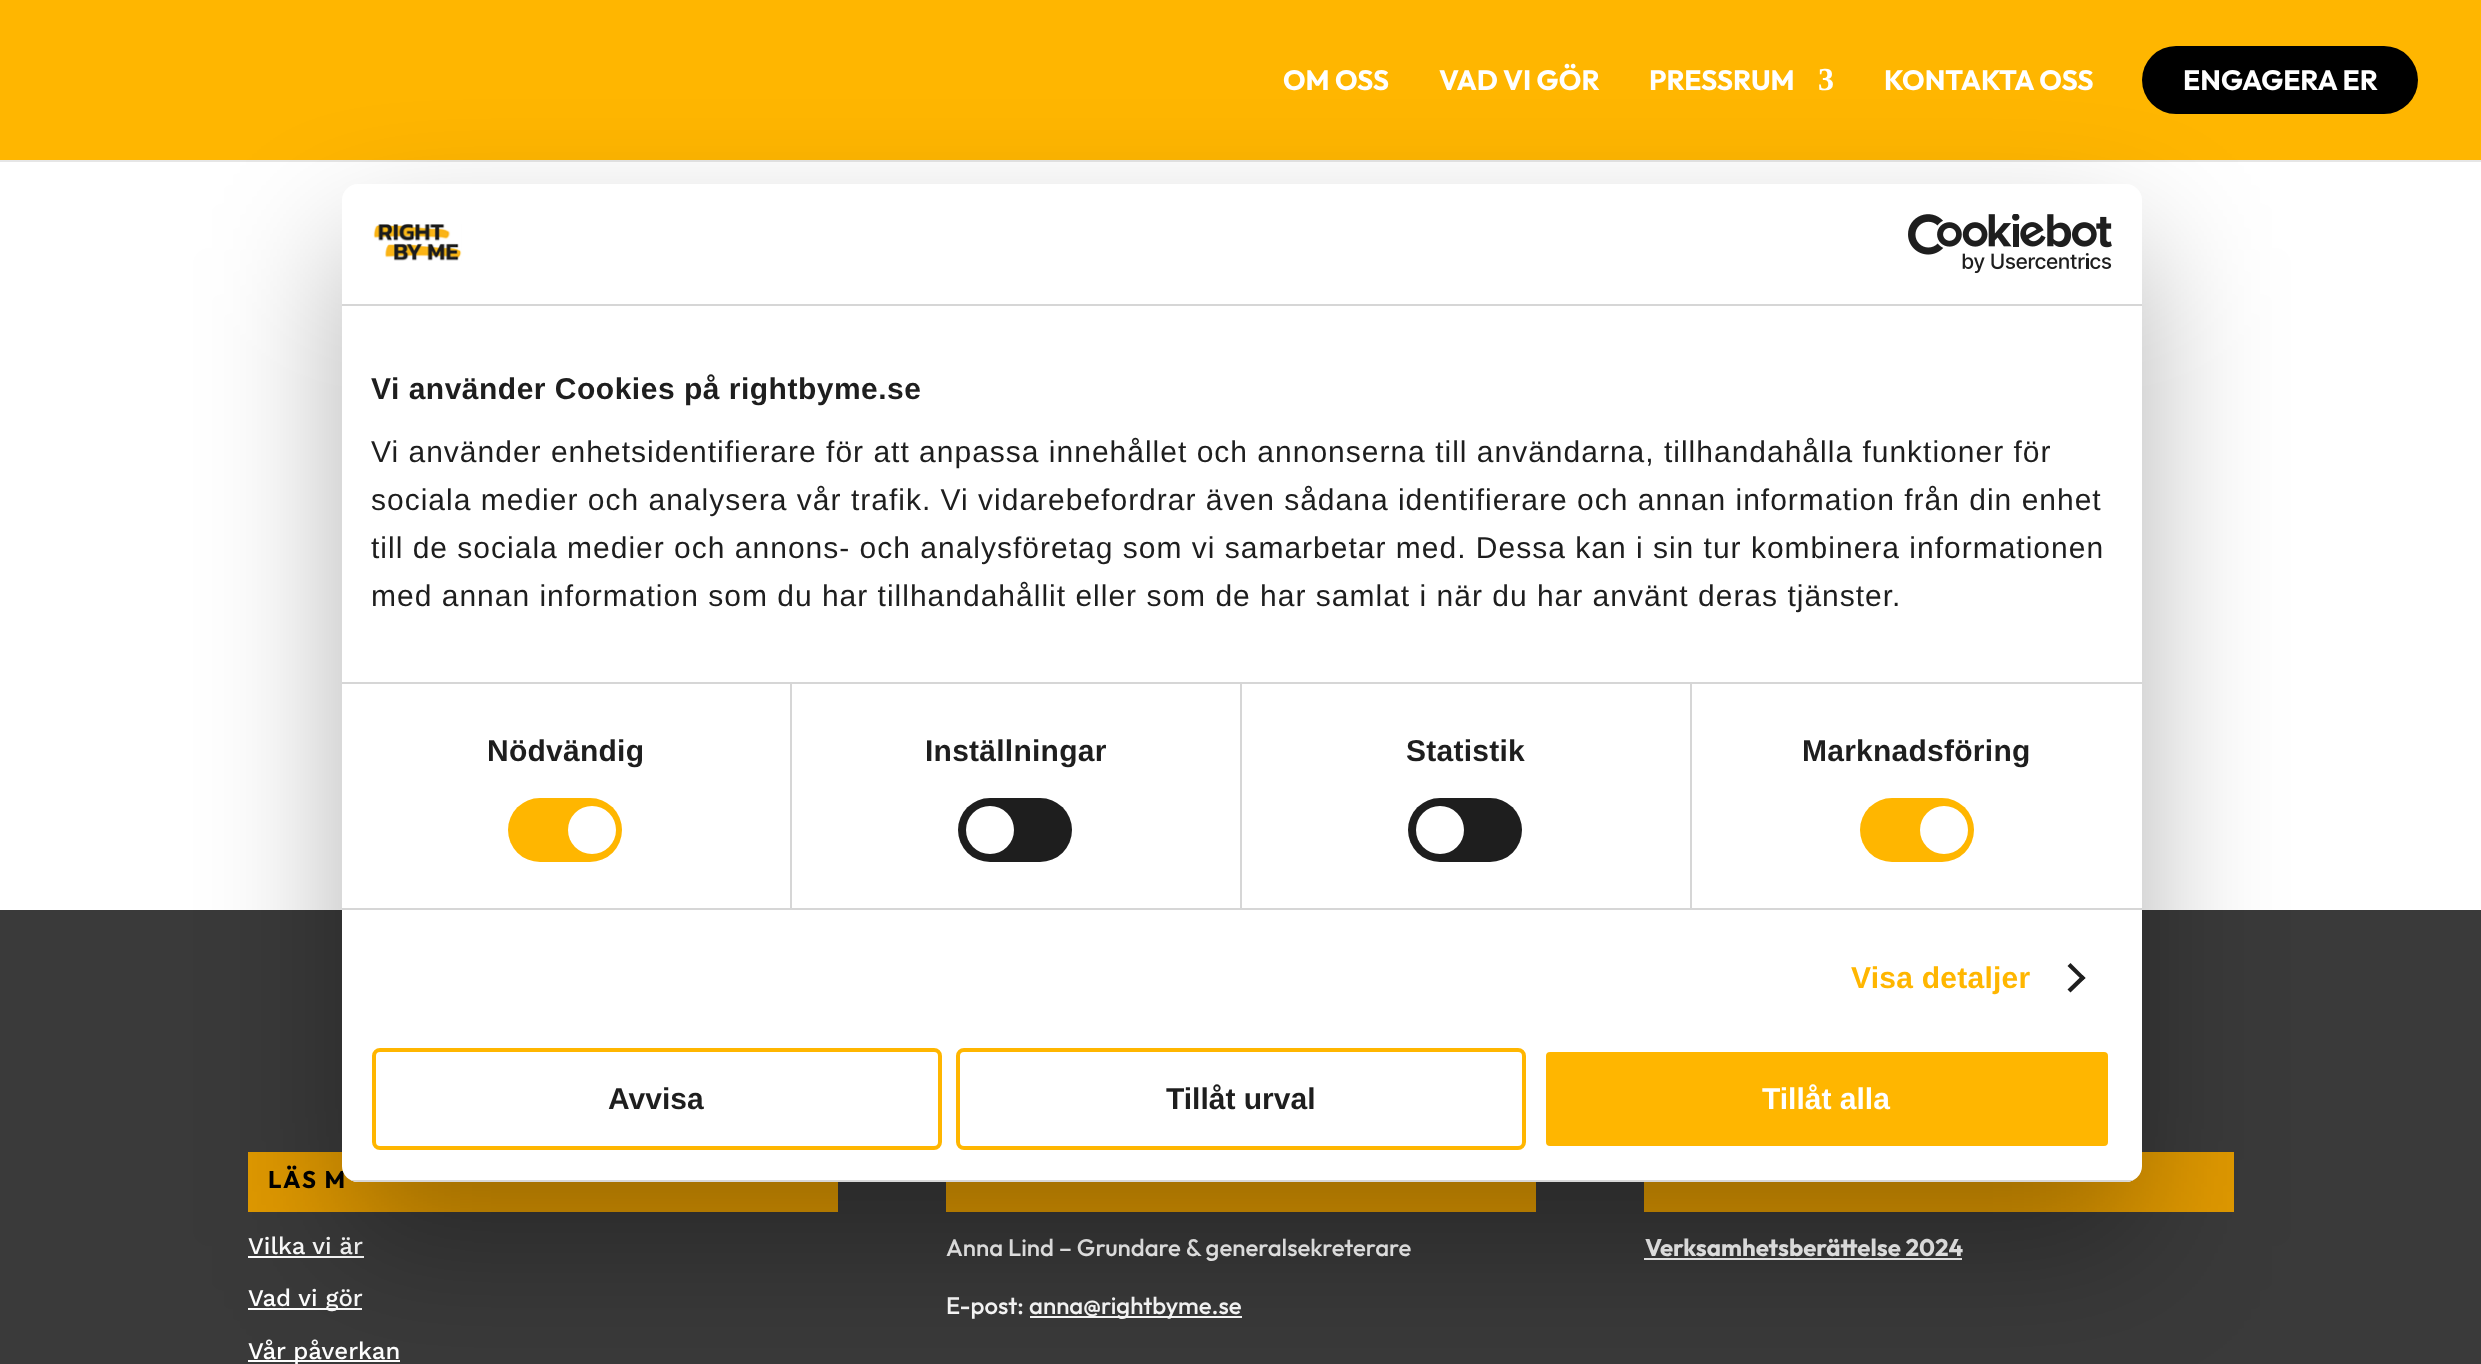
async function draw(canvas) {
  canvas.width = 2481;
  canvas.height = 1364;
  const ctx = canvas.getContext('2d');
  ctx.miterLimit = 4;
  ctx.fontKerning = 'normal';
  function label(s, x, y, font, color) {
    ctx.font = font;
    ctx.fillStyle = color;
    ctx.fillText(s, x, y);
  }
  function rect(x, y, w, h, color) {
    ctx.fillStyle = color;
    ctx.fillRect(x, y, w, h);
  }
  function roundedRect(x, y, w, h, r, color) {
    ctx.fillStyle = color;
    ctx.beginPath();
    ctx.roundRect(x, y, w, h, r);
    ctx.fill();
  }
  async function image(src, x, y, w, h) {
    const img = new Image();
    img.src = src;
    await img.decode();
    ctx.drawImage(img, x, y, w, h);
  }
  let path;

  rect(0, 0, 2481, 1364, '#fff');
  rect(0, 160, 2481, 2, '#e6e6e6');
  rect(0, 0, 2481, 160, '#ffb600');
  label('OM OSS', 1283, 90, 'bold 28px Outfit', '#fff');
  label('VAD VI GÖR', 1439, 90, 'bold 28px Outfit', '#fff');
  label('PRESSRUM', 1649, 90, 'bold 28px Outfit', '#fff');
  label('3', 1818, 90, 'bold 32px Liberation Serif', '#fff');
  label('KONTAKTA OSS', 1884, 90, 'bold 28px Outfit', '#fff');
  roundedRect(2142, 46, 276, 68, 34, '#000');
  label('ENGAGERA ER', 2183, 90, 'bold 28px Outfit', '#fff');
  rect(0, 910, 2481, 454, '#3a3a3a');
  rect(248, 1152, 590, 60, '#e09900');
  ctx.letterSpacing = '2px';
  label('LÄS M', 268, 1188, 'bold 24px Outfit', '#000');
  ctx.letterSpacing = '0px';
  label('Vilka vi är', 248, 1254, '500 24px Work Sans', '#fff');
  rect(248, 1256, 116, 2, '#fff');
  rect(248, 1308, 114, 2, '#fff');
  label('Vad vi gör', 248, 1306, '500 24px Work Sans', '#fff');
  rect(248, 1360, 152, 2, '#fff');
  label('Vår påverkan', 248, 1359, '500 24px Work Sans', '#fff');
  rect(946, 1182, 590, 30, '#e09900');
  label('Anna Lind – Grundare & generalsekreterare', 946, 1256, '500 24px Outfit', '#fff');
  label('E-post:', 946, 1314, '500 24px Outfit', '#fff');
  rect(1030, 1316, 212, 2, '#fff');
  label('anna@rightbyme.se', 1029, 1314, '500 24px Outfit', '#fff');
  rect(1644, 1152, 590, 60, '#e09900');
  label('Verksamhetsberättelse 2024', 1645, 1256, 'bold 24px Outfit', '#fff');
  rect(1644, 1258, 318, 2, '#fff');
  ctx.fillStyle = '#0000004d';
  ctx.filter = 'blur(68px)';
  ctx.beginPath();
  ctx.roundRect(342, 248, 1800, 998, 16);
  ctx.fill();
  ctx.filter = 'none';
  roundedRect(342, 184, 1800, 998, 16, '#fff');
  rect(342, 304, 1800, 2, '#d6d6d6');
  await image('assets/img1.png', 373, 223, 89, 38);
  await image('assets/img2.png', 1908, 214, 204, 60);
  rect(342, 682, 1800, 2, '#d6d6d6');
  ctx.letterSpacing = '0.5px';
  label('Vi använder Cookies på rightbyme.se', 371, 399, 'bold 30px Liberation Sans', '#1e1e1e');
  ctx.letterSpacing = '1px';
  label('Vi använder enhetsidentifierare för att anpassa innehållet och annonserna till användarna, tillhandahålla funktioner för', 371, 462, '30px Liberation Sans', '#1e1e1e');
  label('sociala medier och analysera vår trafik. Vi vidarebefordrar även sådana identifierare och annan information från din enhet', 371, 510, '30px Liberation Sans', '#1e1e1e');
  label('till de sociala medier och annons- och analysföretag som vi samarbetar med. Dessa kan i sin tur kombinera informationen', 371, 558, '30px Liberation Sans', '#1e1e1e');
  label('med annan information som du har tillhandahållit eller som de har samlat i när du har använt deras tjänster.', 371, 606, '30px Liberation Sans', '#1e1e1e');
  rect(342, 908, 1800, 2, '#d6d6d6');
  rect(790, 684, 2, 224, '#d6d6d6');
  ctx.letterSpacing = '0.25px';
  label('Nödvändig', 487, 761, 'bold 30px Liberation Sans', '#1e1e1e');
  roundedRect(508, 798, 114, 64, 32, '#ffb600');
  ctx.fillStyle = '#fff';
  ctx.beginPath();
  ctx.arc(592, 830, 24, 0, 2 * Math.PI);
  ctx.fill();
  rect(1240, 684, 2, 224, '#d6d6d6');
  label('Inställningar', 925, 761, 'bold 30px Liberation Sans', '#1e1e1e');
  roundedRect(958, 798, 114, 64, 32, '#1e1e1e');
  ctx.fillStyle = '#fff';
  ctx.beginPath();
  ctx.arc(990, 830, 24, 0, 2 * Math.PI);
  ctx.fill();
  rect(1690, 684, 2, 224, '#d6d6d6');
  label('Statistik', 1406, 761, 'bold 30px Liberation Sans', '#1e1e1e');
  roundedRect(1408, 798, 114, 64, 32, '#1e1e1e');
  ctx.fillStyle = '#fff';
  ctx.beginPath();
  ctx.arc(1440, 830, 24, 0, 2 * Math.PI);
  ctx.fill();
  label('Marknadsföring', 1802, 761, 'bold 30px Liberation Sans', '#1e1e1e');
  roundedRect(1860, 798, 114, 64, 32, '#ffb600');
  ctx.fillStyle = '#fff';
  ctx.beginPath();
  ctx.arc(1944, 830, 24, 0, 2 * Math.PI);
  ctx.fill();
  label('Visa detaljer', 1851, 988, 'bold 30px Liberation Sans', '#ffb600');
  ctx.fillStyle = '#1e1e1e';
  path = new Path2D('M2070.5 963L2085.5 978L2082.5 980.5L2067.5 966Z');
  ctx.fill(path);
  path = new Path2D('M2082.5 975L2085.5 978L2070.5 992.5L2067.5 989.5Z');
  ctx.fill(path);
  ctx.save();
  ctx.beginPath();
  ctx.roundRect(342, 184, 1800, 998, 16);
  ctx.clip();
  rect(342, 1180, 1800, 2, '#d6d6d6');
  ctx.restore();
  ctx.beginPath();
  ctx.roundRect(374, 1050, 566, 98, 6);
  ctx.strokeStyle = '#ffb600';
  ctx.lineWidth = 4;
  ctx.stroke();
  ctx.letterSpacing = '0px';
  label('Avvisa', 608, 1109, 'bold 30px Liberation Sans', '#1e1e1e');
  ctx.beginPath();
  ctx.roundRect(958, 1050, 566, 98, 6);
  ctx.stroke();
  label('Tillåt urval', 1166, 1109, 'bold 30px Liberation Sans', '#1e1e1e');
  ctx.fillStyle = '#ffb600';
  ctx.beginPath();
  ctx.roundRect(1544, 1050, 566, 98, 6);
  ctx.fill();
  ctx.strokeStyle = '#fff';
  ctx.stroke();
  label('Tillåt alla', 1762, 1109, 'bold 30px Liberation Sans', '#fff');
}

draw(document.querySelector('canvas'));
